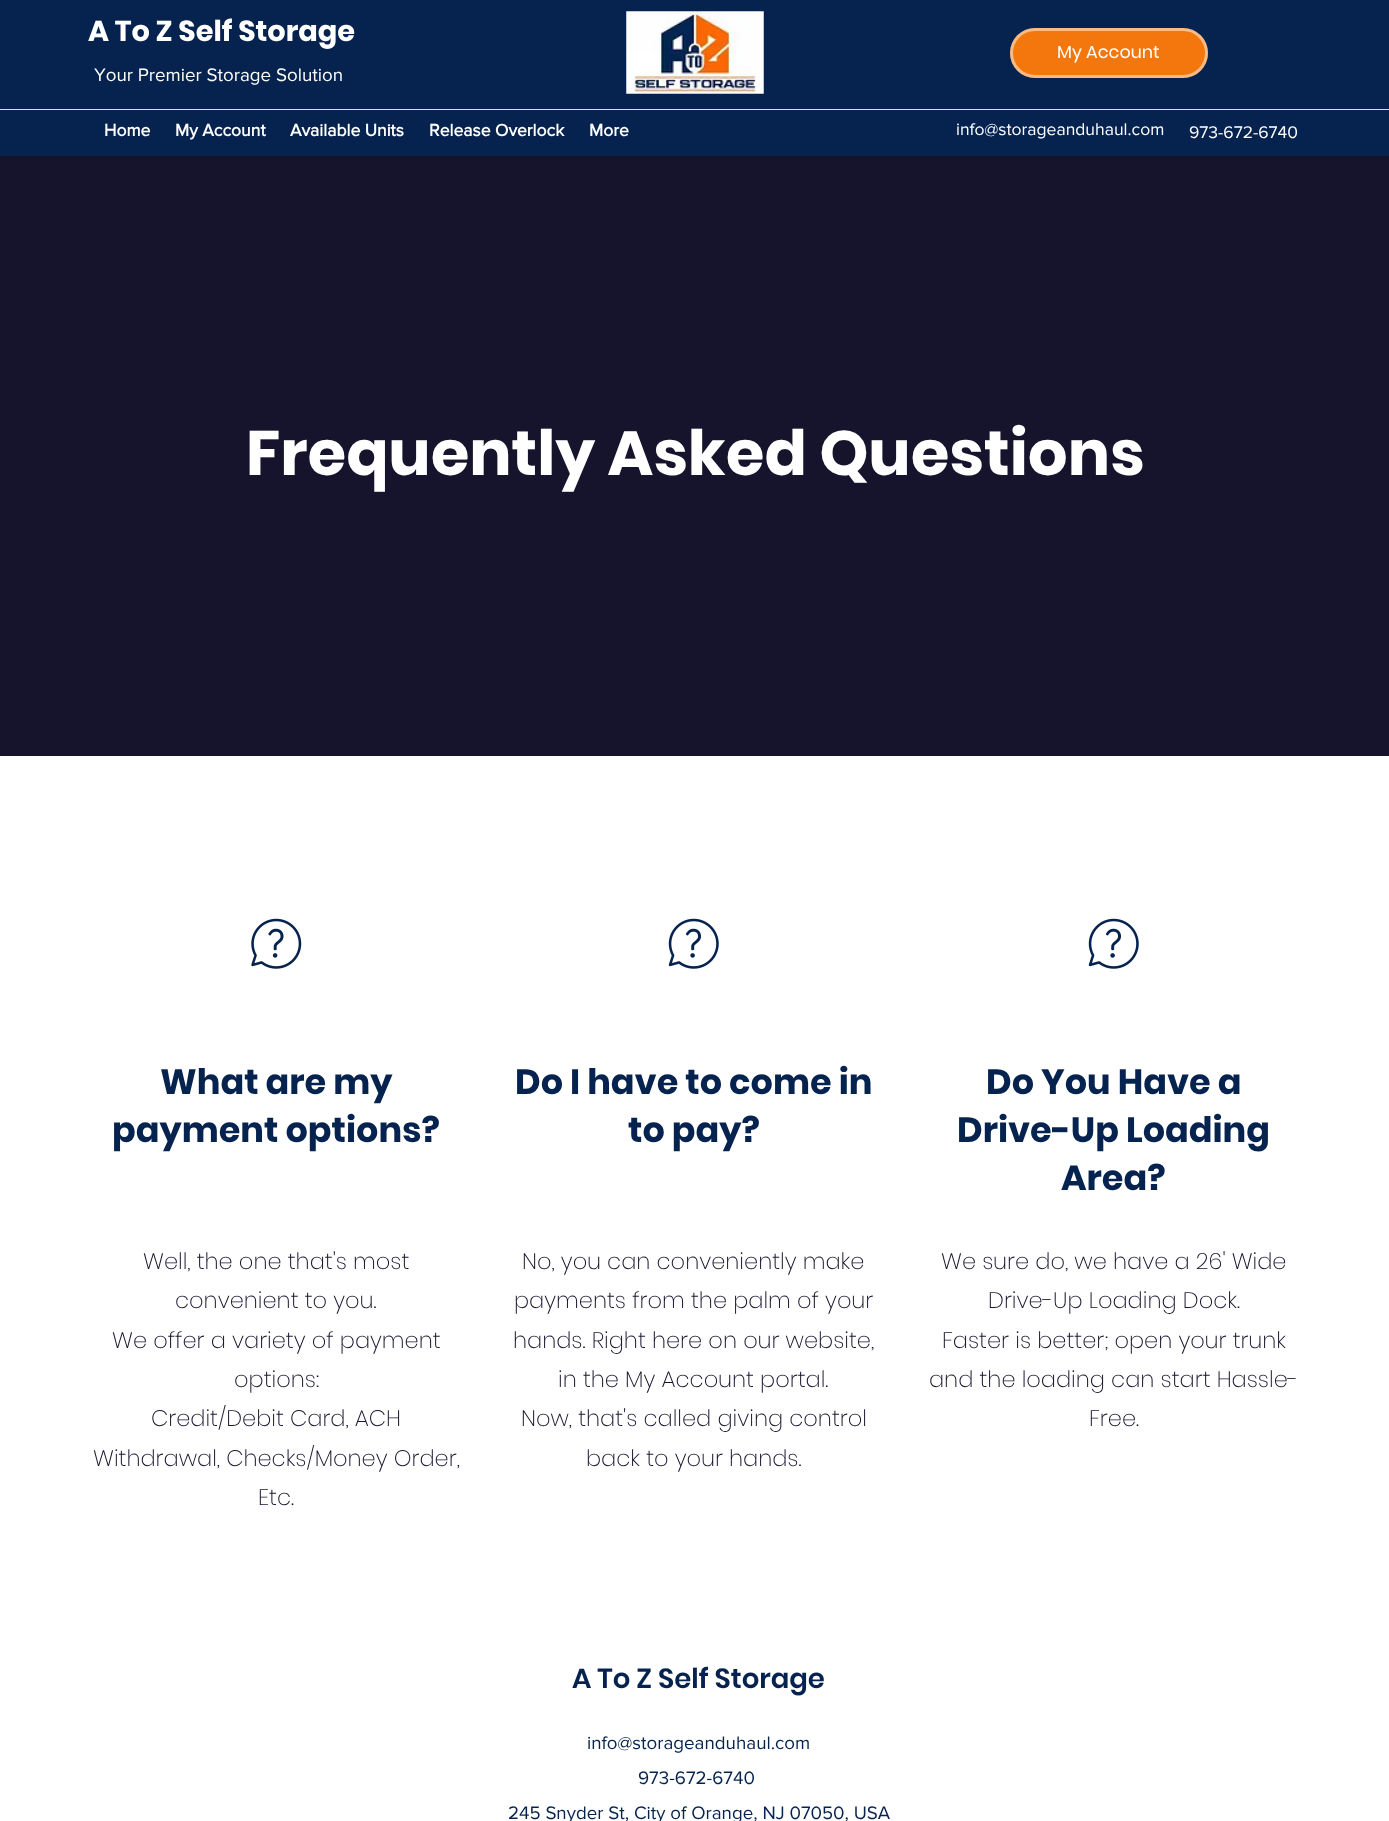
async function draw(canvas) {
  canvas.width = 1389;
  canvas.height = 1821;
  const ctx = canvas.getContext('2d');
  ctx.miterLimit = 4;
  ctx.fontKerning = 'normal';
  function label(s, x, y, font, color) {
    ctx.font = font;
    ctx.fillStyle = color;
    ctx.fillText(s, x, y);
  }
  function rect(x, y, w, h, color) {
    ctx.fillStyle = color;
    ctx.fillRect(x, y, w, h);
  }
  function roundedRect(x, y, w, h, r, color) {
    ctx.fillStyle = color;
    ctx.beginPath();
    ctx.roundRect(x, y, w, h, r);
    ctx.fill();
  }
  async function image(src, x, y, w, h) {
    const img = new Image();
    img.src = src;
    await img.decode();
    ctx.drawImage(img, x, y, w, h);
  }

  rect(0, 0, 1389, 1821, '#fff');
  rect(0, 0, 1389, 156, '#06234f');
  label('A To Z Self Storage', 88, 41, 'bold 28.75px Poppins', '#fff');
  await image('assets/img1.png', 626, 11, 138, 83);
  roundedRect(1010, 28, 198, 50, 25, '#f3770d');
  ctx.beginPath();
  ctx.roundRect(1011.5, 29.5, 195, 47, 23.5);
  ctx.strokeStyle = '#ffffff80';
  ctx.lineWidth = 3;
  ctx.stroke();
  label('My Account', 1057, 58, '17.5px Poppins', '#fff');
  label('Your Premier Storage Solution', 94, 81, '18.75px "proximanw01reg"', '#fff');
  rect(0, 109, 1389, 1, '#dadee5');
  label('Home', 104, 136, 'bold 17.5px "proximanw01reg"', '#fff');
  label('My Account', 175, 136, 'bold 17.5px "proximanw01reg"', '#fff');
  label('Available Units', 290, 136, 'bold 17.5px "proximanw01reg"', '#fff');
  label('Release Overlock', 429, 136, 'bold 17.5px "proximanw01reg"', '#fff');
  label('More', 589, 136, 'bold 17.5px "proximanw01reg"', '#fff');
  label('info@storageanduhaul.com', 956, 135, '17.5px "proximanw01reg"', '#fff');
  label('973-672-6740', 1189, 138, '17.5px "proximanw01reg"', '#fff');
  rect(0, 156, 1389, 600, '#16132c');
  label('Frequently Asked Questions', 246, 475, 'bold 62.5px Poppins', '#fff');
  await image('assets/img2.png', 251, 918, 51, 51);
  label('What are my', 160, 1094, 'bold 35px Poppins', '#06234f');
  label('payment options?', 112, 1142, 'bold 35px Poppins', '#06234f');
  label('Well, the one that\'s most', 143, 1269, '200 22.5px Poppins', '#16132c');
  label('convenient to you.', 175, 1308, '200 22.5px Poppins', '#16132c');
  label('We offer a variety of payment', 112, 1348, '200 22.5px Poppins', '#16132c');
  label('options:', 234, 1387, '200 22.5px Poppins', '#16132c');
  label('Credit/Debit Card, ACH', 151, 1426, '200 22.5px Poppins', '#16132c');
  label('Withdrawal, Checks/Money Order,', 93, 1466, '200 22.5px Poppins', '#16132c');
  label('Etc.', 258, 1505, '200 22.5px Poppins', '#16132c');
  await image('assets/img3.png', 668, 918, 51, 51);
  label('Do I have to come in', 515, 1094, 'bold 35px Poppins', '#06234f');
  label('to pay?', 628, 1142, 'bold 35px Poppins', '#06234f');
  label('No, you can conveniently make', 522, 1269, '200 22.5px Poppins', '#16132c');
  label('payments from the palm of your', 514, 1308, '200 22.5px Poppins', '#16132c');
  label('hands. Right here on our website,', 513, 1348, '200 22.5px Poppins', '#16132c');
  label('in the My Account portal.', 558, 1387, '200 22.5px Poppins', '#16132c');
  label('Now, that\'s called giving control', 521, 1426, '200 22.5px Poppins', '#16132c');
  label('back to your hands.', 586, 1466, '200 22.5px Poppins', '#16132c');
  await image('assets/img3.png', 1088, 918, 51, 51);
  label('Do You Have a', 986, 1094, 'bold 35px Poppins', '#06234f');
  label('Drive-Up Loading', 957, 1142, 'bold 35px Poppins', '#06234f');
  label('Area?', 1061, 1190, 'bold 35px Poppins', '#06234f');
  label('We sure do, we have a 26\' Wide', 941, 1269, '200 22.5px Poppins', '#16132c');
  label('Drive-Up Loading Dock.', 988, 1308, '200 22.5px Poppins', '#16132c');
  label('Faster is better; open your trunk', 942, 1348, '200 22.5px Poppins', '#16132c');
  label('and the loading can start Hassle-', 929, 1387, '200 22.5px Poppins', '#16132c');
  label('Free.', 1089, 1426, '200 22.5px Poppins', '#16132c');
  label('A To Z Self Storage', 572, 1688, '600 27.5px Poppins', '#06234f');
  label('info@storageanduhaul.com', 587, 1749, '18.75px "proximanw01reg"', '#06234f');
  label('973-672-6740', 638, 1784, '18.75px "proximanw01reg"', '#06234f');
  label('245 Snyder St, City of Orange, NJ 07050, USA', 508, 1819, '18.75px "proximanw01reg"', '#06234f');
}

draw(document.querySelector('canvas'));
